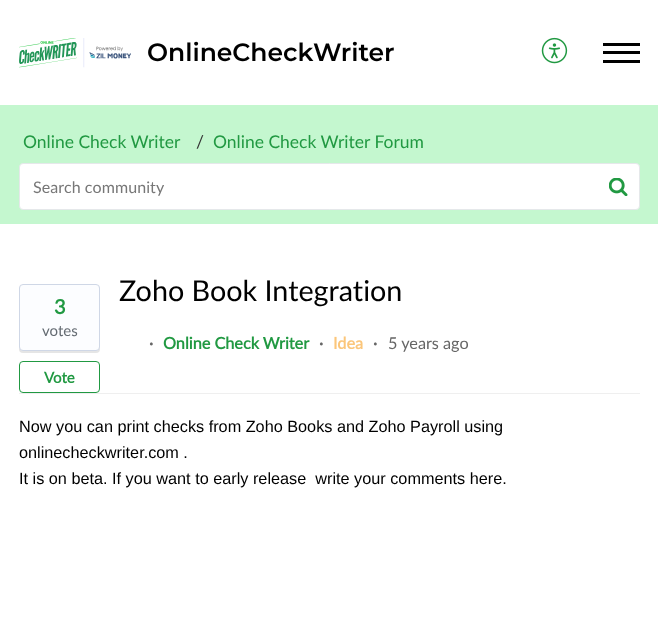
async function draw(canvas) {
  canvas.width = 658;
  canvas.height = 621;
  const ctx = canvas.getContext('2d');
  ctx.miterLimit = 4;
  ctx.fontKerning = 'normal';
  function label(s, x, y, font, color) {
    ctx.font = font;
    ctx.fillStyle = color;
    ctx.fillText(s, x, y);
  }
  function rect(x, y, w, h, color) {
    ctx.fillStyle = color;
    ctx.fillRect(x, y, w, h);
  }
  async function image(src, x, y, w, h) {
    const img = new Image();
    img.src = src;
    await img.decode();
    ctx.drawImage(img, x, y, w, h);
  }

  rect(0, 0, 658, 621, '#fff');
  await image('assets/img1.png', 19, 38, 112, 30);
  label('OnlineCheckWriter', 147, 61, '600 25px Montserrat', '#000');
  await image('assets/img2.png', 541, 37, 27, 27);
  rect(603, 51, 37, 3, '#000');
  rect(603, 43, 37, 3, '#000');
  rect(603, 60, 37, 3, '#000');
  rect(0, 105, 658, 119, '#c4f7cf');
  label('Online Check Writer', 23, 148, '17.5px Lato', '#219942');
  label('/', 196, 148, '17.5px Lato', '#333');
  label('Online Check Writer Forum', 213, 148, '17.5px Lato', '#219942');
  ctx.fillStyle = '#fff';
  ctx.beginPath();
  ctx.roundRect(19.5, 163.5, 620, 46, 3.5);
  ctx.fill();
  ctx.strokeStyle = '#e5e8ea';
  ctx.stroke();
  ctx.letterSpacing = '0.1px';
  label('Search community', 33, 193, '16px Lato', '#777');
  await image('assets/img3.png', 609, 178, 19, 18);
  rect(19, 393, 621, 1, '#efefef');
  ctx.fillStyle = '#0000001a';
  ctx.filter = 'blur(0.5px)';
  ctx.beginPath();
  ctx.roundRect(19, 285, 81, 68, 4);
  ctx.fill();
  ctx.filter = 'none';
  ctx.fillStyle = '#fcfdff';
  ctx.beginPath();
  ctx.roundRect(19.5, 284.5, 80, 66, 3.5);
  ctx.fill();
  ctx.strokeStyle = '#cfd7e6';
  ctx.stroke();
  ctx.letterSpacing = '0px';
  label('3', 54, 314, 'bold 20px Lato', '#219942');
  label('votes', 42, 336, '15px Lato', '#646b72');
  ctx.beginPath();
  ctx.roundRect(19.5, 361.5, 80, 31, 3.5);
  ctx.strokeStyle = '#219942';
  ctx.stroke();
  label('Vote', 44, 383, 'bold 15px Lato', '#219942');
  label('Zoho Book Integration', 119, 301, '28.75px Lato', '#000');
  label('·', 149, 349, 'bold 16.25px Lato', '#666');
  label('Online Check Writer', 163, 349, 'bold 16.25px Lato', '#219942');
  label('·', 319, 349, 'bold 16.25px Lato', '#666');
  label('Idea', 333, 349, 'bold 16.25px Lato', '#fbc67a');
  label('·', 373, 349, 'bold 16.25px Lato', '#666');
  label('5 years ago', 388, 349, '16.25px Lato', '#666');
  label('Now you can print checks from Zoho Books and Zoho Payroll using', 19, 432, '16.25px Liberation Sans', '#000');
  label('onlinecheckwriter.com .', 19, 458, '16.25px Liberation Sans', '#000');
  label('It is on beta. If you want to early release  write your comments here.', 19, 484, '16.25px Liberation Sans', '#000');
}

draw(document.querySelector('canvas'));
